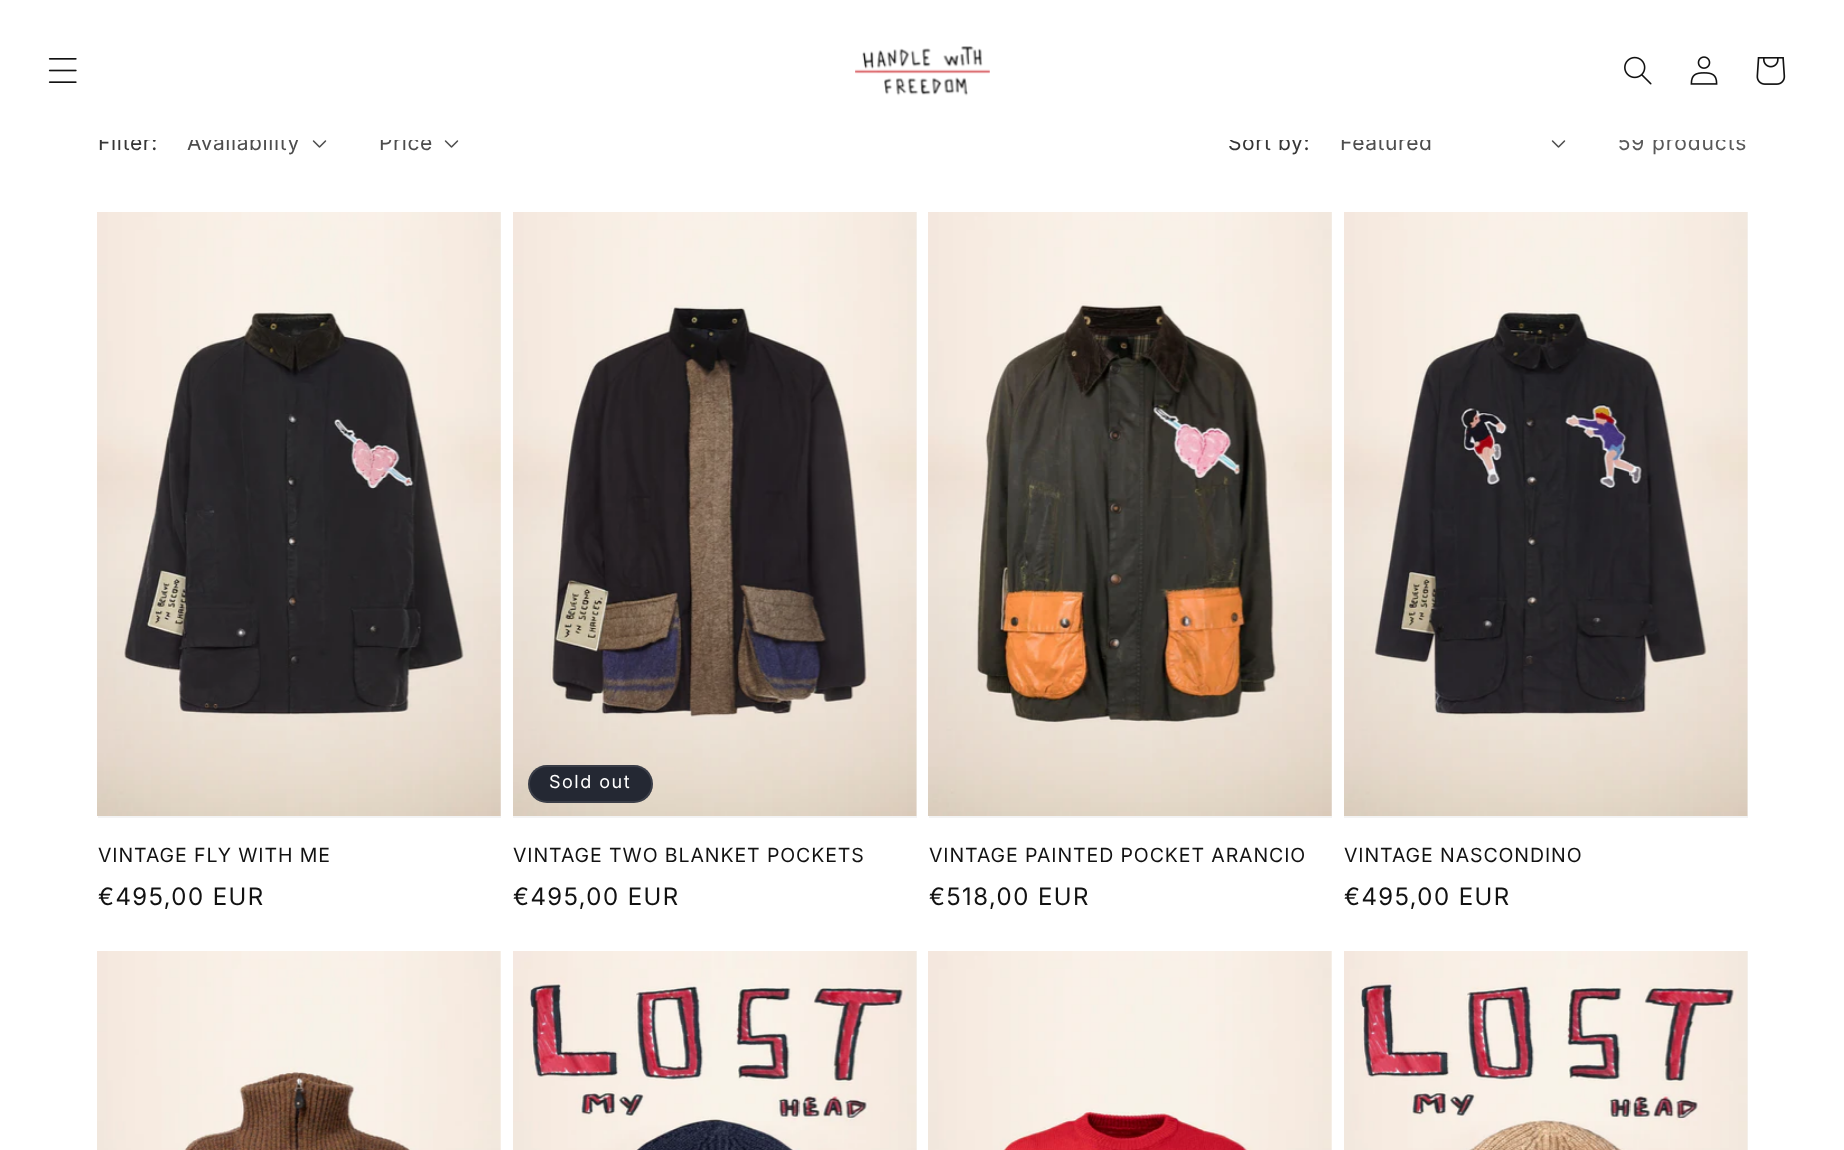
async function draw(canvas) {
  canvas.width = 1844;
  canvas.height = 1150;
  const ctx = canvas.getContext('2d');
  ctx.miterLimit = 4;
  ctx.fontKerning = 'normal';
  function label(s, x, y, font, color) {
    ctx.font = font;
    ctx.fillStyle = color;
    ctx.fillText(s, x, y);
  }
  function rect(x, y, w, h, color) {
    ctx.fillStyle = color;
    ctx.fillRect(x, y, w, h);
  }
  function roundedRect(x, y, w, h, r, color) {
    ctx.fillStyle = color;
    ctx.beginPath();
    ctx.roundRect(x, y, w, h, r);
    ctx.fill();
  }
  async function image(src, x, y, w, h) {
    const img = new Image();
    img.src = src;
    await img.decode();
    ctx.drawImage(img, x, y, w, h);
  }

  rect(0, 0, 1844, 1150, '#fff');
  ctx.letterSpacing = '0.6px';
  label('Filter:', 98, 150, '21px Inter', '#363636');
  label('Availability', 187, 150, '21px Inter', '#4d4d4d');
  label('Price', 379, 150, '21px Inter', '#4d4d4d');
  label('Sort by:', 1228, 150, '21px Inter', '#363636');
  label('Featured', 1340, 150, '21px Inter', '#4d4d4d');
  ctx.letterSpacing = '0.9px';
  label('59 products', 1618, 150, '21px Inter', '#595959');
  rect(99, 134, 1646, 6, '#fff');
  await image('assets/img1.png', 48, 58, 29, 25);
  await image('assets/img2.png', 855, 46, 135, 50);
  await image('assets/img3.png', 1624, 56, 28, 29);
  await image('assets/img4.png', 1690, 56, 28, 29);
  await image('assets/img5.png', 1756, 57, 30, 28);
  await image('assets/img6.png', 312, 140, 15, 8);
  await image('assets/img6.png', 444, 140, 15, 8);
  await image('assets/img6.png', 1551, 140, 15, 8);
  rect(98, 212, 403, 606, '#f3f3f3');
  await image('assets/img7.png', 97, 212, 404, 604);
  label('VINTAGE FLY WITH ME', 98, 862, '19.5px Inter', '#121212');
  ctx.letterSpacing = '1.5px';
  label('€495,00 EUR', 98, 905, '24px "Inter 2"', '#121212');
  rect(513, 212, 404, 606, '#f3f3f3');
  await image('assets/img8.png', 513, 212, 404, 604);
  roundedRect(528, 765, 125, 38, 19, '#242833');
  ctx.beginPath();
  ctx.roundRect(529, 766, 123, 36, 18);
  ctx.strokeStyle = '#ffffff1a';
  ctx.lineWidth = 2;
  ctx.stroke();
  label('Sold out', 549, 788, '18px Inter', '#fff');
  ctx.letterSpacing = '0.9px';
  label('VINTAGE TWO BLANKET POCKETS', 513, 862, '19.5px Inter', '#121212');
  ctx.letterSpacing = '1.5px';
  label('€495,00 EUR', 513, 905, '24px "Inter 2"', '#121212');
  rect(929, 212, 403, 606, '#f3f3f3');
  await image('assets/img9.png', 928, 212, 404, 604);
  ctx.letterSpacing = '0.9px';
  label('VINTAGE PAINTED POCKET ARANCIO', 929, 862, '19.5px Inter', '#121212');
  ctx.letterSpacing = '1.5px';
  label('€518,00 EUR', 929, 905, '24px "Inter 2"', '#121212');
  rect(1344, 212, 404, 606, '#f3f3f3');
  await image('assets/img10.png', 1344, 212, 404, 604);
  ctx.letterSpacing = '0.9px';
  label('VINTAGE NASCONDINO', 1344, 862, '19.5px Inter', '#121212');
  ctx.letterSpacing = '1.5px';
  label('€495,00 EUR', 1344, 905, '24px "Inter 2"', '#121212');
  await image('assets/img11.png', 97, 951, 404, 199);
  rect(916, 951, 1, 199, '#f3f3f3');
  await image('assets/img12.png', 513, 951, 404, 199);
  await image('assets/img13.png', 928, 951, 404, 199);
  rect(1747, 951, 1, 199, '#f3f3f3');
  await image('assets/img14.png', 1344, 951, 404, 199);
}

draw(document.querySelector('canvas'));
